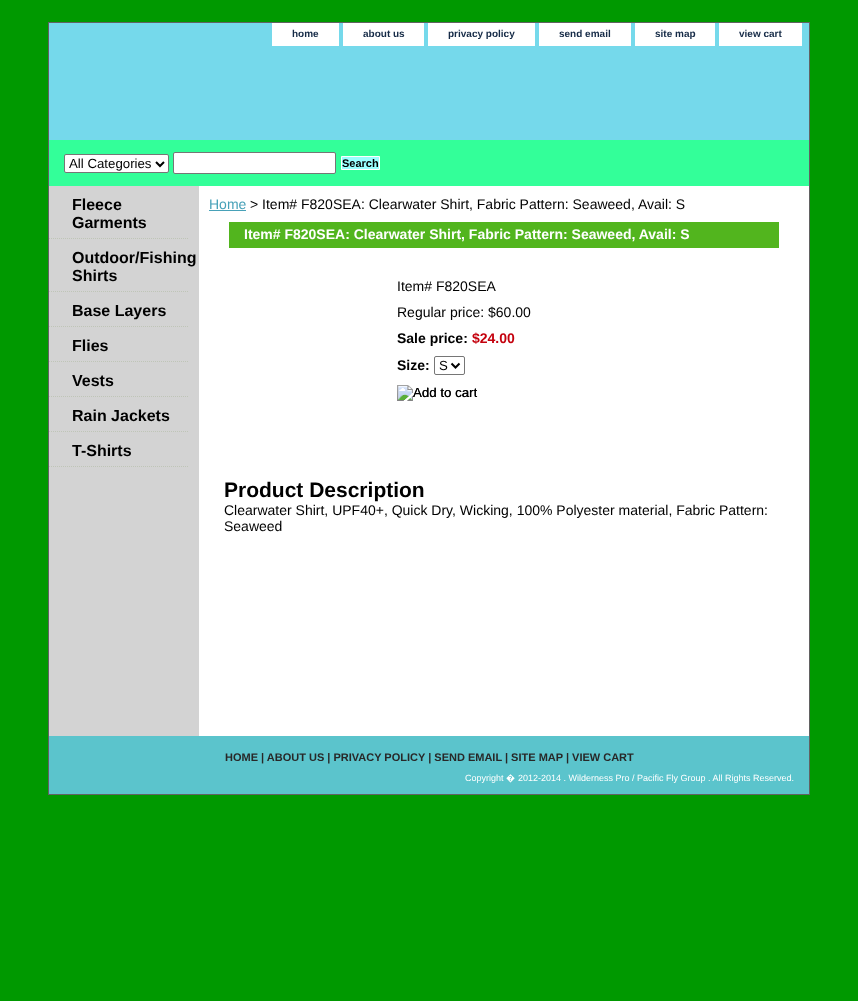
async function draw(canvas) {
  canvas.width = 858;
  canvas.height = 1001;
  const ctx = canvas.getContext('2d');
  ctx.miterLimit = 4;
  ctx.fontKerning = 'normal';
  function label(s, x, y, font, color) {
    ctx.font = font;
    ctx.fillStyle = color;
    ctx.fillText(s, x, y);
  }
  function rect(x, y, w, h, color) {
    ctx.fillStyle = color;
    ctx.fillRect(x, y, w, h);
  }
  async function image(src, x, y, w, h) {
    const img = new Image();
    img.src = src;
    await img.decode();
    ctx.drawImage(img, x, y, w, h);
  }
  let path;

  rect(0, 0, 858, 1001, '#090');
  ctx.strokeStyle = '#626262';
  ctx.strokeRect(48.5, 22.5, 761, 772);
  rect(49, 23, 760, 117, '#75d9eb');
  rect(272, 23, 67, 23, '#fff');
  label('home', 292, 37, 'bold 10px Liberation Sans', '#162b47');
  rect(343, 23, 81, 23, '#fff');
  label('about us', 363, 37, 'bold 10px Liberation Sans', '#162b47');
  rect(428, 23, 107, 23, '#fff');
  label('privacy policy', 448, 37, 'bold 10px Liberation Sans', '#162b47');
  rect(539, 23, 92, 23, '#fff');
  label('send email', 559, 37, 'bold 10px Liberation Sans', '#162b47');
  rect(635, 23, 80, 23, '#fff');
  label('site map', 655, 37, 'bold 10px Liberation Sans', '#162b47');
  rect(719, 23, 83, 23, '#fff');
  label('view cart', 739, 37, 'bold 10px Liberation Sans', '#162b47');
  rect(49, 140, 760, 46, '#3f9');
  ctx.fillStyle = '#fff';
  ctx.beginPath();
  ctx.roundRect(64.5, 154.5, 104, 18, 1.5);
  ctx.fill();
  ctx.strokeStyle = '#767676';
  ctx.stroke();
  path = new Path2D('M156 162L160 166L164 162');
  ctx.strokeStyle = '#000';
  ctx.lineWidth = 2;
  ctx.stroke(path);
  label('All Categories', 69, 168, '13.25px Liberation Sans', '#000');
  ctx.fillStyle = '#fff';
  ctx.beginPath();
  ctx.roundRect(173.5, 152.5, 162, 21, 1.5);
  ctx.fill();
  ctx.strokeStyle = '#767676';
  ctx.lineWidth = 1;
  ctx.stroke();
  ctx.fillStyle = '#9ff';
  ctx.beginPath();
  ctx.rect(341.5, 156.5, 38, 13);
  ctx.fill();
  ctx.strokeStyle = '#fff';
  ctx.stroke();
  label('Search', 342, 167, 'bold 11px Liberation Sans', '#000');
  rect(199, 186, 610, 550, '#fff');
  rect(49, 186, 150, 550, '#d3d3d3');
  path = new Path2D('M49 238.5H189');
  ctx.strokeStyle = '#bfc5b7';
  ctx.setLineDash([1, 1]);
  ctx.stroke(path);
  label('Fleece', 72, 210, 'bold 16px Liberation Sans', '#000');
  label('Garments', 72, 228, 'bold 16px Liberation Sans', '#000');
  path = new Path2D('M49 291.5H189');
  ctx.stroke(path);
  label('Outdoor/Fishing', 72, 263, 'bold 16px Liberation Sans', '#000');
  label('Shirts', 72, 281, 'bold 16px Liberation Sans', '#000');
  path = new Path2D('M49 326.5H189');
  ctx.stroke(path);
  label('Base Layers', 72, 316, 'bold 16px Liberation Sans', '#000');
  path = new Path2D('M49 361.5H189');
  ctx.stroke(path);
  label('Flies', 72, 351, 'bold 16px Liberation Sans', '#000');
  path = new Path2D('M49 396.5H189');
  ctx.stroke(path);
  label('Vests', 72, 386, 'bold 16px Liberation Sans', '#000');
  path = new Path2D('M49 431.5H189');
  ctx.stroke(path);
  label('Rain Jackets', 72, 421, 'bold 16px Liberation Sans', '#000');
  path = new Path2D('M49 466.5H189');
  ctx.stroke(path);
  label('T-Shirts', 72, 456, 'bold 16px Liberation Sans', '#000');
  label('Home', 209, 209, '14px Liberation Sans', '#47a1b8');
  rect(209, 210, 37, 1, '#47a1b8');
  label('> Item# F820SEA: Clearwater Shirt, Fabric Pattern: Seaweed, Avail: S', 250, 209, '14px Liberation Sans', '#000');
  rect(229, 222, 550, 26, '#52b51e');
  label('Item# F820SEA: Clearwater Shirt, Fabric Pattern: Seaweed, Avail: S', 244, 239, 'bold 14px Liberation Sans', '#fff');
  label('Item# F820SEA', 397, 291, '14px Liberation Sans', '#000');
  label('Regular price: $60.00', 397, 317, '14px Liberation Sans', '#000');
  label('Sale price:', 397, 343, 'bold 14px Liberation Sans', '#000');
  label('$24.00', 472, 343, 'bold 14px Liberation Sans', '#c4010d');
  label('Size:', 397, 370, 'bold 14px Liberation Sans', '#000');
  ctx.beginPath();
  ctx.roundRect(434.5, 356.5, 30, 18, 1.5);
  ctx.strokeStyle = '#767676';
  ctx.setLineDash([]);
  ctx.stroke();
  path = new Path2D('M451.5 363.5L455.5 367.5L459.5 363.5');
  ctx.strokeStyle = '#000';
  ctx.lineWidth = 2;
  ctx.stroke(path);
  label('S', 439, 370, '13.25px Liberation Sans', '#000');
  await image('assets/img1.png', 397, 385, 80, 16);
  label('Add to cart', 413, 397, '13.25px Liberation Sans', '#000');
  label('Product Description', 224, 497, 'bold 21px Liberation Sans', '#000');
  label('Clearwater Shirt, UPF40+, Quick Dry, Wicking, 100% Polyester material, Fabric Pattern:', 224, 515, '14px Liberation Sans', '#000');
  label('Seaweed', 224, 531, '14px Liberation Sans', '#000');
  rect(49, 736, 760, 58, '#5bc4cc');
  label('HOME | ABOUT US | PRIVACY POLICY | SEND EMAIL | SITE MAP | VIEW CART', 225, 761, 'bold 11px Liberation Sans', '#282828');
  label('Copyright', 465, 781, '9px Liberation Sans', '#fff');
  label('�', 506, 781, '9px Noto Sans', '#fff');
  label('2012-2014 . Wilderness Pro / Pacific Fly Group . All Rights Reserved.', 518, 781, '9px Liberation Sans', '#fff');
}

draw(document.querySelector('canvas'));
